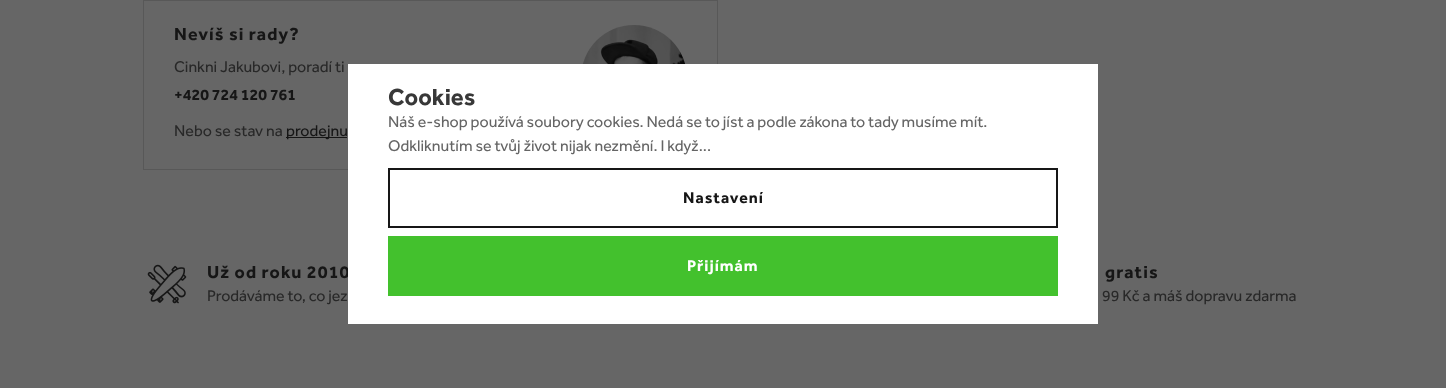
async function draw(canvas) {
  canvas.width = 1446;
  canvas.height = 388;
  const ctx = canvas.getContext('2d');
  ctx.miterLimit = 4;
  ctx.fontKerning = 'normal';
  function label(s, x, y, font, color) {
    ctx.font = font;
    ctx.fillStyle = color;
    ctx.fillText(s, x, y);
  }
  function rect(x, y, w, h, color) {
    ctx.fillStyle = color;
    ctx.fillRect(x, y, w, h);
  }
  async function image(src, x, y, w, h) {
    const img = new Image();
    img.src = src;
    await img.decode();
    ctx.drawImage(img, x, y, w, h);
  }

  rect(0, 0, 1446, 388, '#666');
  ctx.strokeStyle = '#585858';
  ctx.strokeRect(143.5, 0.5, 574, 169);
  ctx.letterSpacing = '1.1px';
  label('Nevíš si rady?', 174, 40, 'bold 18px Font', '#161616');
  ctx.letterSpacing = '0px';
  label('Cinkni Jakubovi, poradí ti', 174, 72, '16px Font', '#282828');
  label('+420 724 120 761', 174, 100, 'bold 16px Font', '#161616');
  label('Nebo se stav na', 174, 136, '16px Font', '#282828');
  rect(286, 137, 61, 1, '#161616');
  label('prodejnu', 286, 136, '16px Font', '#161616');
  await image('assets/img1.png', 582, 25, 103, 39);
  await image('assets/img2.png', 147, 264, 40, 40);
  ctx.letterSpacing = '1.1px';
  label('Už od roku 2010', 207, 278, 'bold 18px Font', '#161616');
  ctx.letterSpacing = '0px';
  label('Prodáváme to, co jez', 207, 301, '16px Font', '#282828');
  ctx.letterSpacing = '1.1px';
  label('gratis', 1105, 278, 'bold 18px Font', '#161616');
  ctx.letterSpacing = '0px';
  label('99 Kč a máš dopravu zdarma', 1102, 301, '16px Font', '#282828');
  rect(348, 64, 750, 260, '#fff');
  label('Cookies', 388, 105, 'bold 24px Font', '#383838');
  label('Náš e-shop používá soubory cookies. Nedá se to jíst a podle zákona to tady musíme mít.', 388, 127, '16px Font', '#656565');
  label('Odkliknutím se tvůj život nijak nezmění. I když...', 388, 151, '16px Font', '#656565');
  ctx.strokeStyle = '#171717';
  ctx.lineWidth = 2;
  ctx.strokeRect(389, 169, 668, 58);
  ctx.letterSpacing = '1px';
  label('Nastavení', 683, 203, 'bold 16px Font', '#161616');
  rect(388, 236, 670, 60, '#43c12d');
  label('Přijímám', 687, 271, 'bold 16px Font', '#fff');
}

draw(document.querySelector('canvas'));
